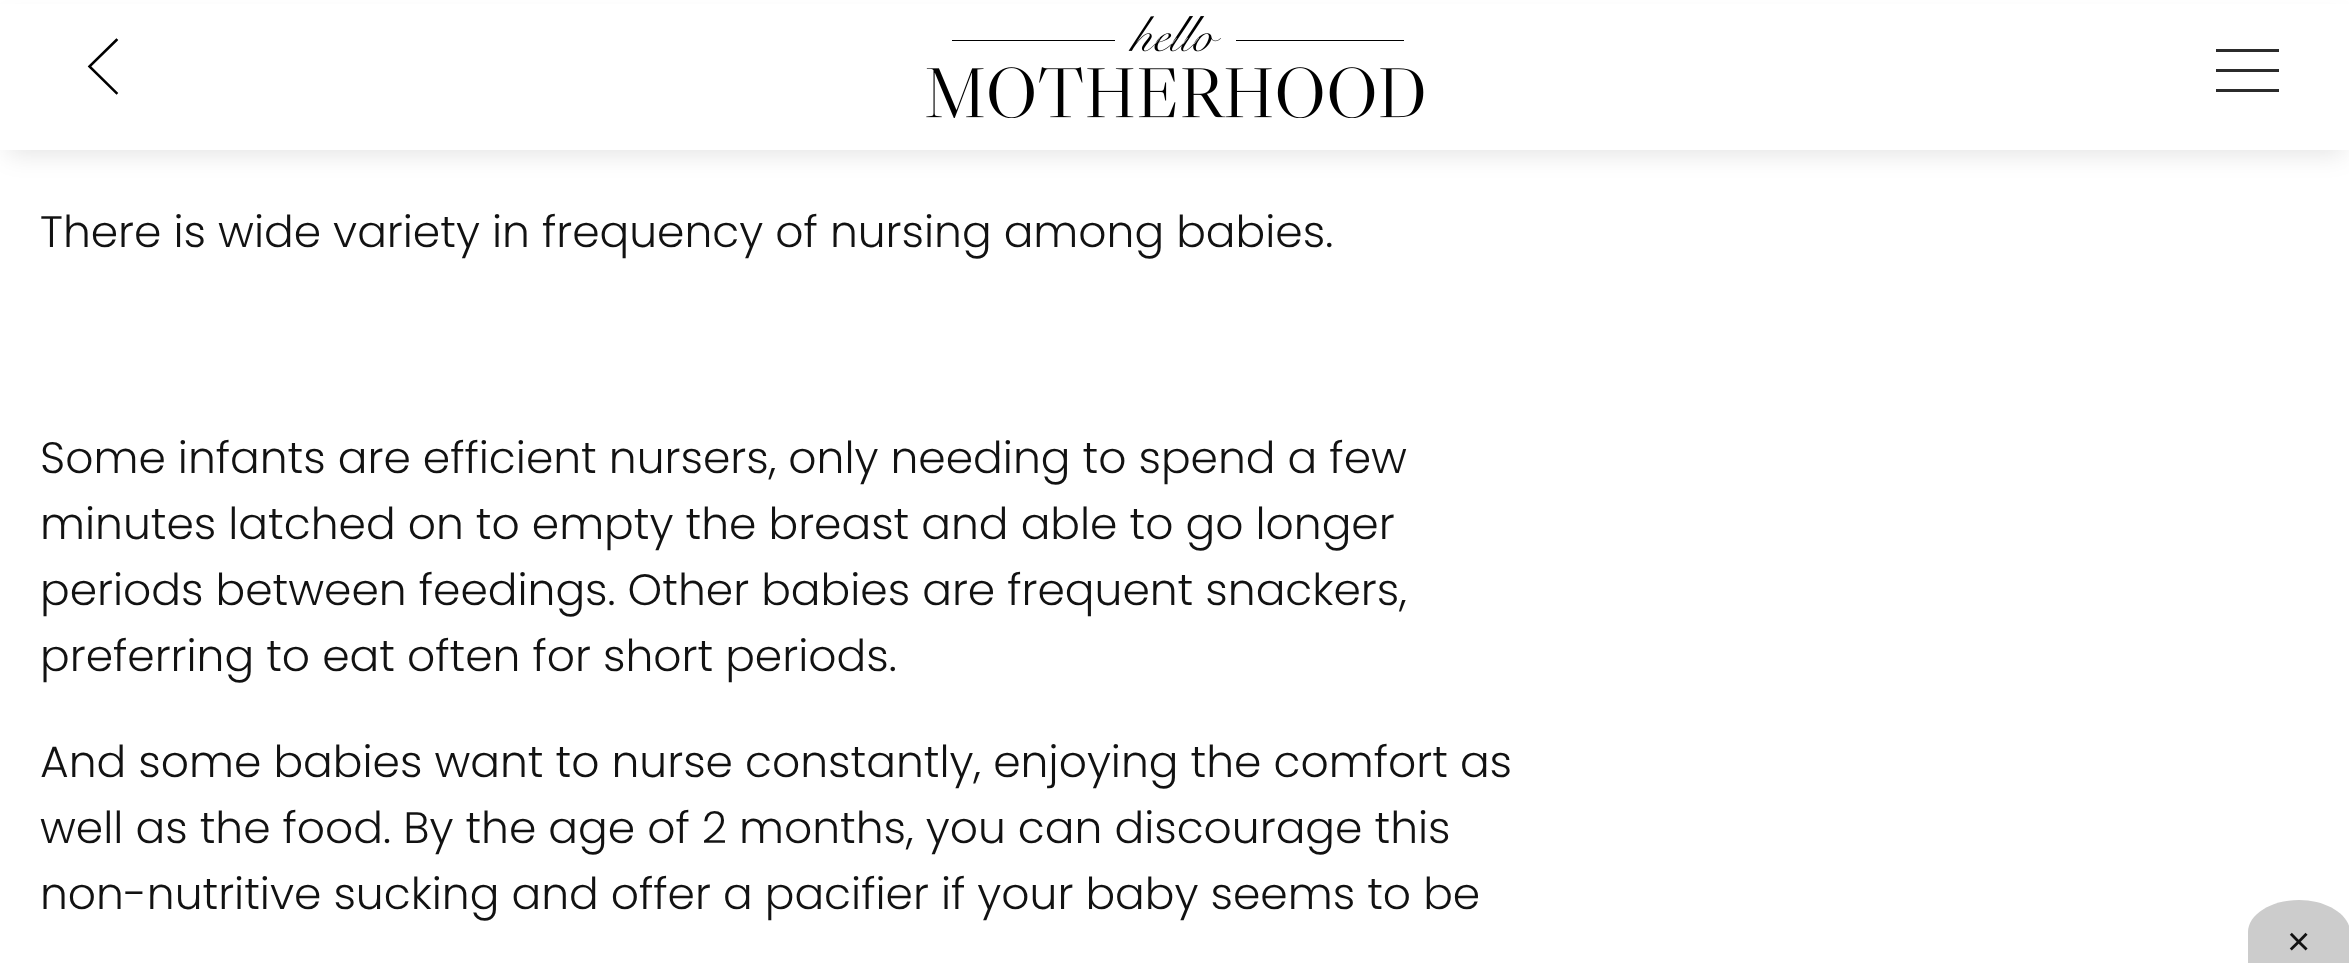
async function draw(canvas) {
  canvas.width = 2349;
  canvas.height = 963;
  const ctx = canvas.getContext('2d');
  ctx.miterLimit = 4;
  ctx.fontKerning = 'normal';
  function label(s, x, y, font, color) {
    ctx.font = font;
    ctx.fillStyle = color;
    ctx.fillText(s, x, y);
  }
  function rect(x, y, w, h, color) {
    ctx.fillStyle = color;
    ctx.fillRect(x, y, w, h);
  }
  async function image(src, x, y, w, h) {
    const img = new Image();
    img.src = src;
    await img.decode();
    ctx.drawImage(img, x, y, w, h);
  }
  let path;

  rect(0, 0, 2349, 963, '#fff');
  ctx.fillStyle = '#0000001a';
  ctx.filter = 'blur(12.5px)';
  ctx.beginPath();
  ctx.rect(8, 20, 2335, 135);
  ctx.fill();
  ctx.filter = 'none';
  rect(0, 4, 2349, 146, '#fff');
  path = new Path2D('M89.5 66.5L116.5 40M89.5 66.5L116.5 93');
  ctx.strokeStyle = '#000';
  ctx.lineWidth = 2.5;
  ctx.lineCap = 'square';
  ctx.stroke(path);
  await image('assets/img1.png', 926, 16, 498, 102);
  rect(2216, 49, 63, 3, '#2b2b2b');
  rect(2216, 69, 63, 3, '#2b2b2b');
  rect(2216, 89, 63, 3, '#2b2b2b');
  label('There is wide variety in frequency of nursing among babies.', 40, 247, '300 44px Poppins', '#121212');
  label('Some infants are efficient nursers, only needing to spend a few', 40, 473, '300 44px Poppins', '#121212');
  label('minutes latched on to empty the breast and able to go longer', 40, 539, '300 44px Poppins', '#121212');
  label('periods between feedings. Other babies are frequent snackers,', 40, 605, '300 44px Poppins', '#121212');
  label('preferring to eat often for short periods.', 40, 671, '300 44px Poppins', '#121212');
  label('And some babies want to nurse constantly, enjoying the comfort as', 40, 777, '300 44px Poppins', '#121212');
  label('well as the food. By the age of 2 months, you can discourage this', 40, 843, '300 44px Poppins', '#121212');
  label('non-nutritive sucking and offer a pacifier if your baby seems to be', 40, 909, '300 44px Poppins', '#121212');
  ctx.fillStyle = '#ccc';
  path = new Path2D('M2299 900C2327 900 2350 915 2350 932V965H2248V932C2248 915 2270 900 2299 900Z');
  ctx.fill(path);
  label('×', 2287, 955, '40px Liberation Sans', '#121212');
}

draw(document.querySelector('canvas'));
